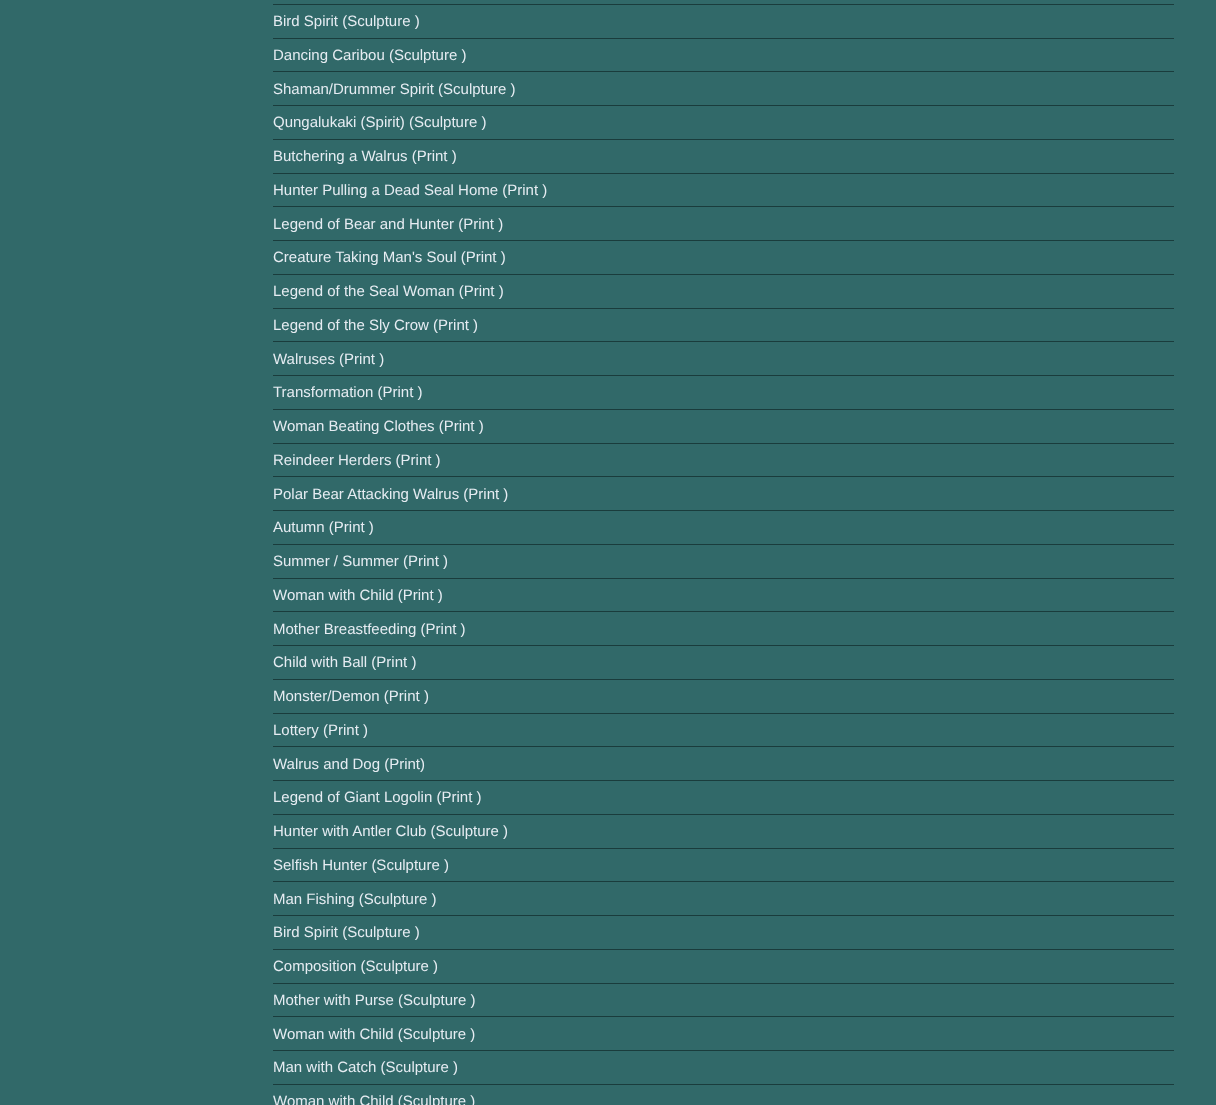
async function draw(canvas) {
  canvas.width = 1216;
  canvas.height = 1105;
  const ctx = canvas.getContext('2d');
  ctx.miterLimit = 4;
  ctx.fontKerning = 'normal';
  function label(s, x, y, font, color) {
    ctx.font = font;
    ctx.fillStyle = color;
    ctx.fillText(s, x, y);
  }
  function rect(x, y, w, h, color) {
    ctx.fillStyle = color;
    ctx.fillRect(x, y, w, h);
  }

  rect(0, 0, 1216, 1105, '#316969');
  rect(273, 4, 901, 1, '#1a3c3c');
  label('Bird Spirit (Sculpture )', 273, 26, '15px Liberation Sans', '#e6ecf2');
  rect(273, 38, 901, 1, '#1a3c3c');
  label('Dancing Caribou (Sculpture )', 273, 60, '15px Liberation Sans', '#e6ecf2');
  rect(273, 71, 901, 1, '#1a3c3c');
  label('Shaman/Drummer Spirit (Sculpture )', 273, 94, '15px Liberation Sans', '#e6ecf2');
  rect(273, 105, 901, 1, '#1a3c3c');
  label('Qungalukaki (Spirit) (Sculpture )', 273, 127, '15px Liberation Sans', '#e6ecf2');
  rect(273, 139, 901, 1, '#1a3c3c');
  label('Butchering a Walrus (Print )', 273, 161, '15px Liberation Sans', '#e6ecf2');
  rect(273, 173, 901, 1, '#1a3c3c');
  label('Hunter Pulling a Dead Seal Home (Print )', 273, 195, '15px Liberation Sans', '#e6ecf2');
  rect(273, 206, 901, 1, '#1a3c3c');
  label('Legend of Bear and Hunter (Print )', 273, 229, '15px Liberation Sans', '#e6ecf2');
  rect(273, 240, 901, 1, '#1a3c3c');
  label('Creature Taking Man\'s Soul (Print )', 273, 262, '15px Liberation Sans', '#e6ecf2');
  rect(273, 274, 901, 1, '#1a3c3c');
  label('Legend of the Seal Woman (Print )', 273, 296, '15px Liberation Sans', '#e6ecf2');
  rect(273, 308, 901, 1, '#1a3c3c');
  label('Legend of the Sly Crow (Print )', 273, 330, '15px Liberation Sans', '#e6ecf2');
  rect(273, 341, 901, 1, '#1a3c3c');
  label('Walruses (Print )', 273, 364, '15px Liberation Sans', '#e6ecf2');
  rect(273, 375, 901, 1, '#1a3c3c');
  label('Transformation (Print )', 273, 397, '15px Liberation Sans', '#e6ecf2');
  rect(273, 409, 901, 1, '#1a3c3c');
  label('Woman Beating Clothes (Print )', 273, 431, '15px Liberation Sans', '#e6ecf2');
  rect(273, 443, 901, 1, '#1a3c3c');
  label('Reindeer Herders (Print )', 273, 465, '15px Liberation Sans', '#e6ecf2');
  rect(273, 476, 901, 1, '#1a3c3c');
  label('Polar Bear Attacking Walrus (Print )', 273, 499, '15px Liberation Sans', '#e6ecf2');
  rect(273, 510, 901, 1, '#1a3c3c');
  label('Autumn (Print )', 273, 532, '15px Liberation Sans', '#e6ecf2');
  rect(273, 544, 901, 1, '#1a3c3c');
  label('Summer / Summer (Print )', 273, 566, '15px Liberation Sans', '#e6ecf2');
  rect(273, 578, 901, 1, '#1a3c3c');
  label('Woman with Child (Print )', 273, 600, '15px Liberation Sans', '#e6ecf2');
  rect(273, 611, 901, 1, '#1a3c3c');
  label('Mother Breastfeeding (Print )', 273, 634, '15px Liberation Sans', '#e6ecf2');
  rect(273, 645, 901, 1, '#1a3c3c');
  label('Child with Ball (Print )', 273, 667, '15px Liberation Sans', '#e6ecf2');
  rect(273, 679, 901, 1, '#1a3c3c');
  label('Monster/Demon (Print )', 273, 701, '15px Liberation Sans', '#e6ecf2');
  rect(273, 713, 901, 1, '#1a3c3c');
  label('Lottery (Print )', 273, 735, '15px Liberation Sans', '#e6ecf2');
  rect(273, 746, 901, 1, '#1a3c3c');
  label('Walrus and Dog (Print)', 273, 769, '15px Liberation Sans', '#e6ecf2');
  rect(273, 780, 901, 1, '#1a3c3c');
  label('Legend of Giant Logolin (Print )', 273, 802, '15px Liberation Sans', '#e6ecf2');
  rect(273, 814, 901, 1, '#1a3c3c');
  label('Hunter with Antler Club (Sculpture )', 273, 836, '15px Liberation Sans', '#e6ecf2');
  rect(273, 848, 901, 1, '#1a3c3c');
  label('Selfish Hunter (Sculpture )', 273, 870, '15px Liberation Sans', '#e6ecf2');
  rect(273, 881, 901, 1, '#1a3c3c');
  label('Man Fishing (Sculpture )', 273, 904, '15px Liberation Sans', '#e6ecf2');
  rect(273, 915, 901, 1, '#1a3c3c');
  label('Bird Spirit (Sculpture )', 273, 937, '15px Liberation Sans', '#e6ecf2');
  rect(273, 949, 901, 1, '#1a3c3c');
  label('Composition (Sculpture )', 273, 971, '15px Liberation Sans', '#e6ecf2');
  rect(273, 983, 901, 1, '#1a3c3c');
  label('Mother with Purse (Sculpture )', 273, 1005, '15px Liberation Sans', '#e6ecf2');
  rect(273, 1016, 901, 1, '#1a3c3c');
  label('Woman with Child (Sculpture )', 273, 1039, '15px Liberation Sans', '#e6ecf2');
  rect(273, 1050, 901, 1, '#1a3c3c');
  label('Man with Catch (Sculpture )', 273, 1072, '15px Liberation Sans', '#e6ecf2');
  rect(273, 1084, 901, 1, '#1a3c3c');
  label('Woman with Child (Sculpture )', 273, 1106, '15px Liberation Sans', '#e6ecf2');
}

draw(document.querySelector('canvas'));
